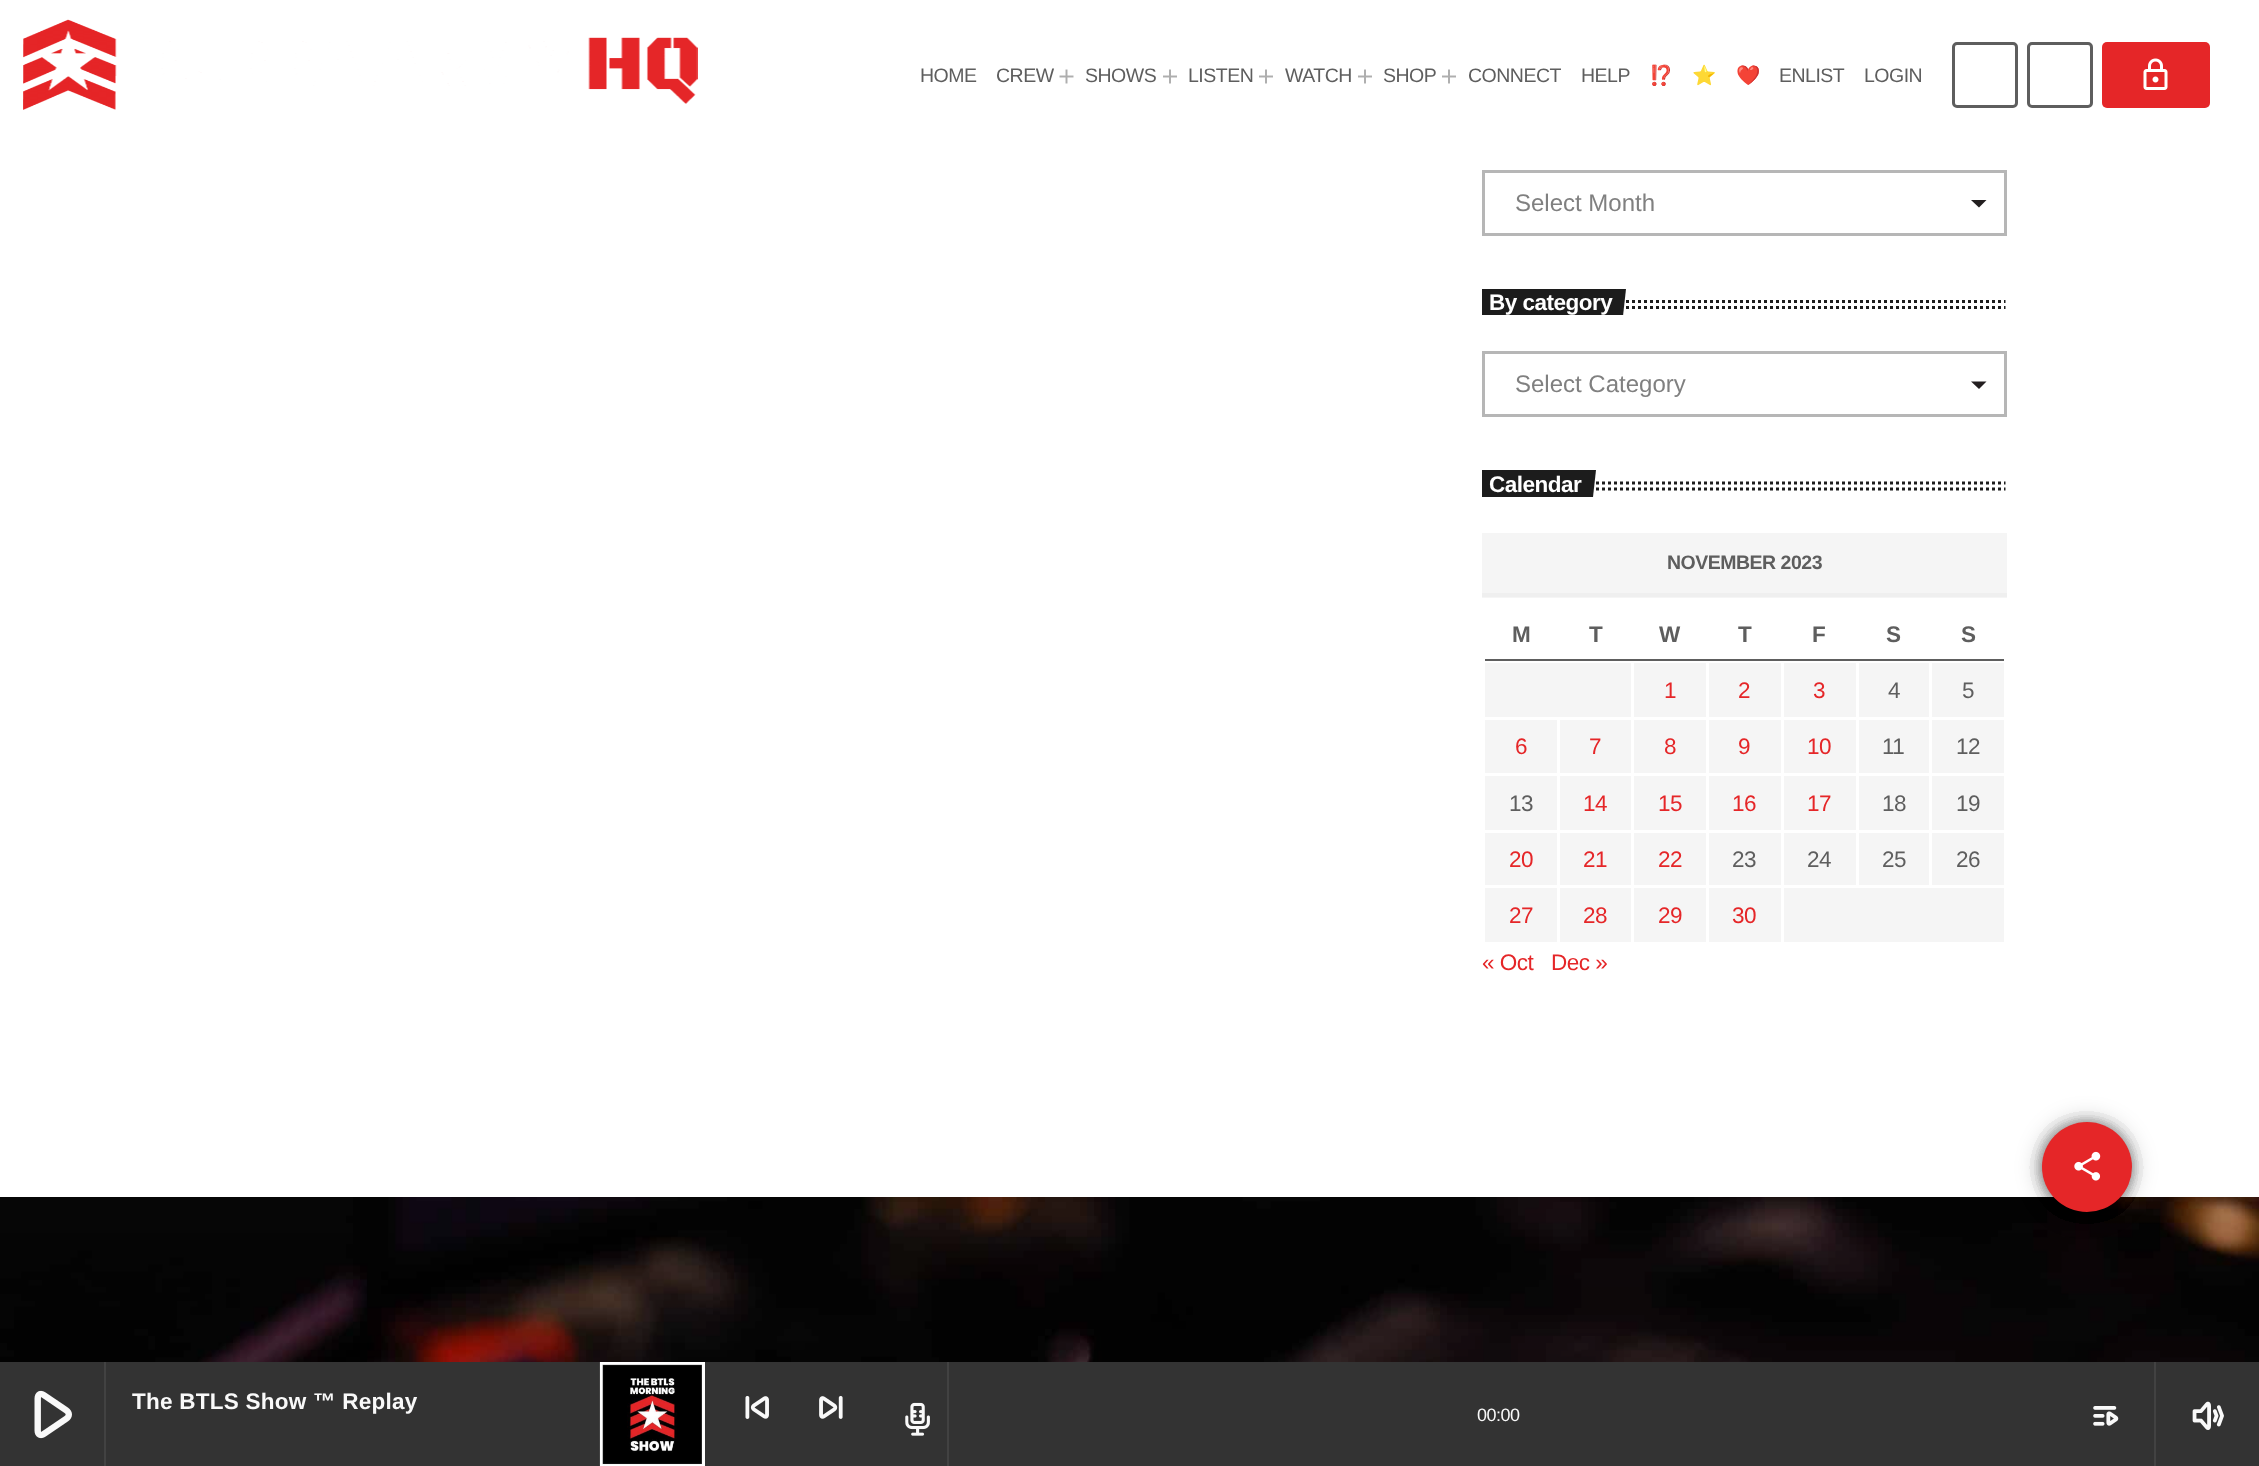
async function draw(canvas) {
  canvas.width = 2259;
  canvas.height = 1466;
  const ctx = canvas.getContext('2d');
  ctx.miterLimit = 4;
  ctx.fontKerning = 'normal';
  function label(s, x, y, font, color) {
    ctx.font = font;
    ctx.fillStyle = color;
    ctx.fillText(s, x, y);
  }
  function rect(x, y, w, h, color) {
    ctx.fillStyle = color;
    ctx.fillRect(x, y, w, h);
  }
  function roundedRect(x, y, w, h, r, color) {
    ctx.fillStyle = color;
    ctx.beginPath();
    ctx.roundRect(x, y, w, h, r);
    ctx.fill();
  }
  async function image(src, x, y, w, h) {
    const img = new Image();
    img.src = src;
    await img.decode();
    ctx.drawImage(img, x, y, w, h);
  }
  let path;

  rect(0, 0, 2259, 1466, '#fff');
  await image('assets/img1.png', 23, 19, 675, 91);
  ctx.letterSpacing = '-0.5px';
  label('HOME', 920, 82, '19.5px Liberation Sans', '#5e5e5e');
  label('CREW', 996, 82, '19.5px Liberation Sans', '#5e5e5e');
  await image('assets/img2.png', 1059, 69, 15, 15);
  label('SHOWS', 1085, 82, '19.5px Liberation Sans', '#5e5e5e');
  await image('assets/img3.png', 1163, 69, 14, 15);
  label('LISTEN', 1188, 82, '19.5px Liberation Sans', '#5e5e5e');
  await image('assets/img3.png', 1259, 69, 14, 15);
  label('WATCH', 1285, 82, '19.5px Liberation Sans', '#5e5e5e');
  await image('assets/img3.png', 1358, 69, 14, 15);
  label('SHOP', 1383, 82, '19.5px Liberation Sans', '#5e5e5e');
  await image('assets/img3.png', 1442, 69, 14, 15);
  label('CONNECT', 1468, 82, '19.5px Liberation Sans', '#5e5e5e');
  label('HELP', 1581, 82, '19.5px Liberation Sans', '#5e5e5e');
  label('⁉️', 1649, 82, '19.5px Noto Color Emoji', '#5e5e5e');
  label('⭐', 1692, 82, '19.5px Noto Color Emoji', '#5e5e5e');
  label('❤️', 1736, 82, '19.5px Noto Color Emoji', '#5e5e5e');
  label('ENLIST', 1779, 82, '19.5px Liberation Sans', '#5e5e5e');
  label('LOGIN', 1864, 82, '19.5px Liberation Sans', '#5e5e5e');
  ctx.beginPath();
  ctx.roundRect(1953.5, 43.5, 63, 63, 3.5);
  ctx.strokeStyle = '#5e5e5e';
  ctx.lineWidth = 3;
  ctx.stroke();
  ctx.beginPath();
  ctx.roundRect(2028.5, 43.5, 63, 63, 3.5);
  ctx.stroke();
  roundedRect(2102, 42, 108, 66, 5, '#e52628');
  await image('assets/img4.png', 2143, 58, 25, 32);
  rect(1482, 597, 525, 1, '#f5f5f5');
  ctx.fillStyle = '#231f20';
  path = new Path2D('M1986.5 200L1979 207.5L1971 200Z');
  ctx.fill(path);
  ctx.strokeStyle = '#b6b6b6';
  ctx.strokeRect(1483.5, 171.5, 522, 63);
  ctx.letterSpacing = '0px';
  label('Select Month', 1515, 211, '24px Liberation Sans', '#808080');
  path = new Path2D('M1488 301.5H2005.5');
  ctx.strokeStyle = '#1c1c1c';
  ctx.setLineDash([3, 3]);
  ctx.stroke(path);
  path = new Path2D('M1488 307.5H2005.5');
  ctx.stroke(path);
  ctx.save();
  ctx.beginPath();
  ctx.rect(1482, 288, 146, 27);
  ctx.clip();
  ctx.fillStyle = '#1c1c1c';
  path = new Path2D('M1475 289H1626L1623 316H1472Z');
  ctx.fill(path);
  ctx.restore();
  ctx.letterSpacing = '-0.5px';
  label('By category', 1489, 310, 'bold 22.5px Liberation Sans', '#fff');
  ctx.fillStyle = '#231f20';
  path = new Path2D('M1986.5 381.5L1979 389L1971 381.5Z');
  ctx.fill(path);
  ctx.strokeStyle = '#b6b6b6';
  ctx.setLineDash([]);
  ctx.strokeRect(1483.5, 352.5, 522, 63);
  ctx.letterSpacing = '0px';
  label('Select Category', 1515, 392, '24px Liberation Sans', '#808080');
  path = new Path2D('M1488 483H2005.5');
  ctx.strokeStyle = '#1c1c1c';
  ctx.setLineDash([3, 3]);
  ctx.stroke(path);
  path = new Path2D('M1488 489H2005.5');
  ctx.stroke(path);
  ctx.save();
  ctx.beginPath();
  ctx.rect(1482, 470, 116, 27);
  ctx.clip();
  ctx.fillStyle = '#1c1c1c';
  path = new Path2D('M1474 470H1596L1593 497H1471Z');
  ctx.fill(path);
  ctx.restore();
  ctx.letterSpacing = '-0.5px';
  label('Calendar', 1489, 492, 'bold 22.5px Liberation Sans', '#fff');
  rect(1482, 533, 525, 60, '#f5f5f5');
  rect(1482, 593, 525, 4, '#efefef');
  label('NOVEMBER 2023', 1667, 569, 'bold 19.5px Liberation Sans', '#5e5e5e');
  rect(1485, 659, 519, 2, '#5e5e5e');
  label('M', 1512, 642, 'bold 22.5px Liberation Sans', '#5e5e5e');
  label('T', 1589, 642, 'bold 22.5px Liberation Sans', '#5e5e5e');
  label('W', 1659, 642, 'bold 22.5px Liberation Sans', '#5e5e5e');
  label('T', 1738, 642, 'bold 22.5px Liberation Sans', '#5e5e5e');
  label('F', 1812, 642, 'bold 22.5px Liberation Sans', '#5e5e5e');
  label('S', 1886, 642, 'bold 22.5px Liberation Sans', '#5e5e5e');
  label('S', 1961, 642, 'bold 22.5px Liberation Sans', '#5e5e5e');
  rect(1485, 663, 146, 54, '#f5f5f5');
  rect(1634, 663, 72, 54, '#f5f5f5');
  label('1', 1664, 698, '22.5px Liberation Sans', '#e52628');
  rect(1709, 663, 72, 54, '#f5f5f5');
  label('2', 1738, 698, '22.5px Liberation Sans', '#e52628');
  rect(1784, 663, 72, 54, '#f5f5f5');
  label('3', 1813, 698, '22.5px Liberation Sans', '#e52628');
  rect(1859, 663, 70, 54, '#f5f5f5');
  label('4', 1888, 698, '22.5px Liberation Sans', '#5e5e5e');
  rect(1932, 663, 72, 54, '#f5f5f5');
  label('5', 1962, 698, '22.5px Liberation Sans', '#5e5e5e');
  rect(1485, 720, 72, 53, '#f5f5f5');
  label('6', 1515, 754, '22.5px Liberation Sans', '#e52628');
  rect(1560, 720, 71, 53, '#f5f5f5');
  label('7', 1589, 754, '22.5px Liberation Sans', '#e52628');
  rect(1634, 720, 72, 53, '#f5f5f5');
  label('8', 1664, 754, '22.5px Liberation Sans', '#e52628');
  rect(1709, 720, 72, 53, '#f5f5f5');
  label('9', 1738, 754, '22.5px Liberation Sans', '#e52628');
  rect(1784, 720, 72, 53, '#f5f5f5');
  label('10', 1807, 754, '22.5px Liberation Sans', '#e52628');
  rect(1859, 720, 70, 53, '#f5f5f5');
  label('11', 1882, 754, '22.5px Liberation Sans', '#5e5e5e');
  rect(1932, 720, 72, 53, '#f5f5f5');
  label('12', 1956, 754, '22.5px Liberation Sans', '#5e5e5e');
  rect(1485, 776, 72, 54, '#f5f5f5');
  label('13', 1509, 811, '22.5px Liberation Sans', '#5e5e5e');
  rect(1560, 776, 71, 54, '#f5f5f5');
  label('14', 1583, 811, '22.5px Liberation Sans', '#e52628');
  rect(1634, 776, 72, 54, '#f5f5f5');
  label('15', 1658, 811, '22.5px Liberation Sans', '#e52628');
  rect(1709, 776, 72, 54, '#f5f5f5');
  label('16', 1732, 811, '22.5px Liberation Sans', '#e52628');
  rect(1784, 776, 72, 54, '#f5f5f5');
  label('17', 1807, 811, '22.5px Liberation Sans', '#e52628');
  rect(1859, 776, 70, 54, '#f5f5f5');
  label('18', 1882, 811, '22.5px Liberation Sans', '#5e5e5e');
  rect(1932, 776, 72, 54, '#f5f5f5');
  label('19', 1956, 811, '22.5px Liberation Sans', '#5e5e5e');
  rect(1485, 833, 72, 52, '#f5f5f5');
  label('20', 1509, 867, '22.5px Liberation Sans', '#e52628');
  rect(1560, 833, 71, 52, '#f5f5f5');
  label('21', 1583, 867, '22.5px Liberation Sans', '#e52628');
  rect(1634, 833, 72, 52, '#f5f5f5');
  label('22', 1658, 867, '22.5px Liberation Sans', '#e52628');
  rect(1709, 833, 72, 52, '#f5f5f5');
  label('23', 1732, 867, '22.5px Liberation Sans', '#5e5e5e');
  rect(1784, 833, 72, 52, '#f5f5f5');
  label('24', 1807, 867, '22.5px Liberation Sans', '#5e5e5e');
  rect(1859, 833, 70, 52, '#f5f5f5');
  label('25', 1882, 867, '22.5px Liberation Sans', '#5e5e5e');
  rect(1932, 833, 72, 52, '#f5f5f5');
  label('26', 1956, 867, '22.5px Liberation Sans', '#5e5e5e');
  rect(1485, 888, 72, 54, '#f5f5f5');
  label('27', 1509, 923, '22.5px Liberation Sans', '#e52628');
  rect(1560, 888, 71, 54, '#f5f5f5');
  label('28', 1583, 923, '22.5px Liberation Sans', '#e52628');
  rect(1634, 888, 72, 54, '#f5f5f5');
  label('29', 1658, 923, '22.5px Liberation Sans', '#e52628');
  rect(1709, 888, 72, 54, '#f5f5f5');
  label('30', 1732, 923, '22.5px Liberation Sans', '#e52628');
  rect(1784, 888, 220, 54, '#f5f5f5');
  label('« Oct', 1482, 970, '22.5px Liberation Sans', '#e52628');
  label('Dec »', 1551, 970, '22.5px Liberation Sans', '#e52628');
  await image('assets/img6.png', 0, 1197, 2259, 165);
  ctx.fillStyle = '#00000033';
  ctx.filter = 'blur(11px)';
  ctx.beginPath();
  ctx.roundRect(2037, 1118, 99, 99, 49.5);
  ctx.fill();
  ctx.filter = 'none';
  ctx.filter = 'blur(11px)';
  ctx.beginPath();
  ctx.roundRect(2052, 1133, 69, 69, 34.5);
  ctx.fill();
  ctx.filter = 'none';
  ctx.filter = 'blur(11px)';
  ctx.beginPath();
  ctx.roundRect(2052, 1133, 69, 69, 34.5);
  ctx.fill();
  ctx.filter = 'none';
  ctx.filter = 'blur(11px)';
  ctx.beginPath();
  ctx.roundRect(2052, 1133, 69, 69, 34.5);
  ctx.fill();
  ctx.filter = 'none';
  ctx.filter = 'blur(11px)';
  ctx.beginPath();
  ctx.roundRect(2052, 1133, 69, 69, 34.5);
  ctx.fill();
  ctx.filter = 'none';
  ctx.filter = 'blur(11px)';
  ctx.beginPath();
  ctx.roundRect(2052, 1133, 69, 69, 34.5);
  ctx.fill();
  ctx.filter = 'none';
  ctx.filter = 'blur(11px)';
  ctx.beginPath();
  ctx.roundRect(2052, 1133, 69, 69, 34.5);
  ctx.fill();
  ctx.filter = 'none';
  ctx.filter = 'blur(11px)';
  ctx.beginPath();
  ctx.roundRect(2052, 1133, 69, 69, 34.5);
  ctx.fill();
  ctx.filter = 'none';
  ctx.filter = 'blur(11px)';
  ctx.beginPath();
  ctx.roundRect(2052, 1133, 69, 69, 34.5);
  ctx.fill();
  ctx.filter = 'none';
  ctx.filter = 'blur(11px)';
  ctx.beginPath();
  ctx.roundRect(2052, 1133, 69, 69, 34.5);
  ctx.fill();
  ctx.filter = 'none';
  ctx.fillStyle = '#e52628';
  ctx.beginPath();
  ctx.arc(2087, 1167, 45, 0, 2 * Math.PI);
  ctx.fill();
  await image('assets/img5.png', 2074, 1151, 27, 30);
  rect(0, 1362, 599, 104, '#333');
  rect(599, 1362, 1, 104, '#424242');
  rect(104, 1362, 2, 104, '#424242');
  await image('assets/img7.png', 34, 1390, 38, 49);
  ctx.letterSpacing = '0.25px';
  label('The BTLS Show ™ Replay', 132, 1409, 'bold 22.5px Liberation Sans', '#f9f9f9');
  rect(705, 1362, 1554, 104, '#333');
  await image('assets/img8.png', 600, 1362, 105, 104);
  rect(947, 1362, 2, 104, '#424242');
  await image('assets/img9.png', 745, 1395, 24, 24);
  await image('assets/img10.png', 819, 1395, 24, 24);
  await image('assets/img11.png', 905, 1402, 25, 34);
  ctx.letterSpacing = '-0.5px';
  label('00:00', 1477, 1421, '18px Liberation Sans', '#f9f9f9');
  await image('assets/img12.png', 2093, 1406, 26, 20);
  rect(2154, 1362, 2, 104, '#424242');
  await image('assets/img13.png', 2192, 1401, 32, 29);
}

draw(document.querySelector('canvas'));
